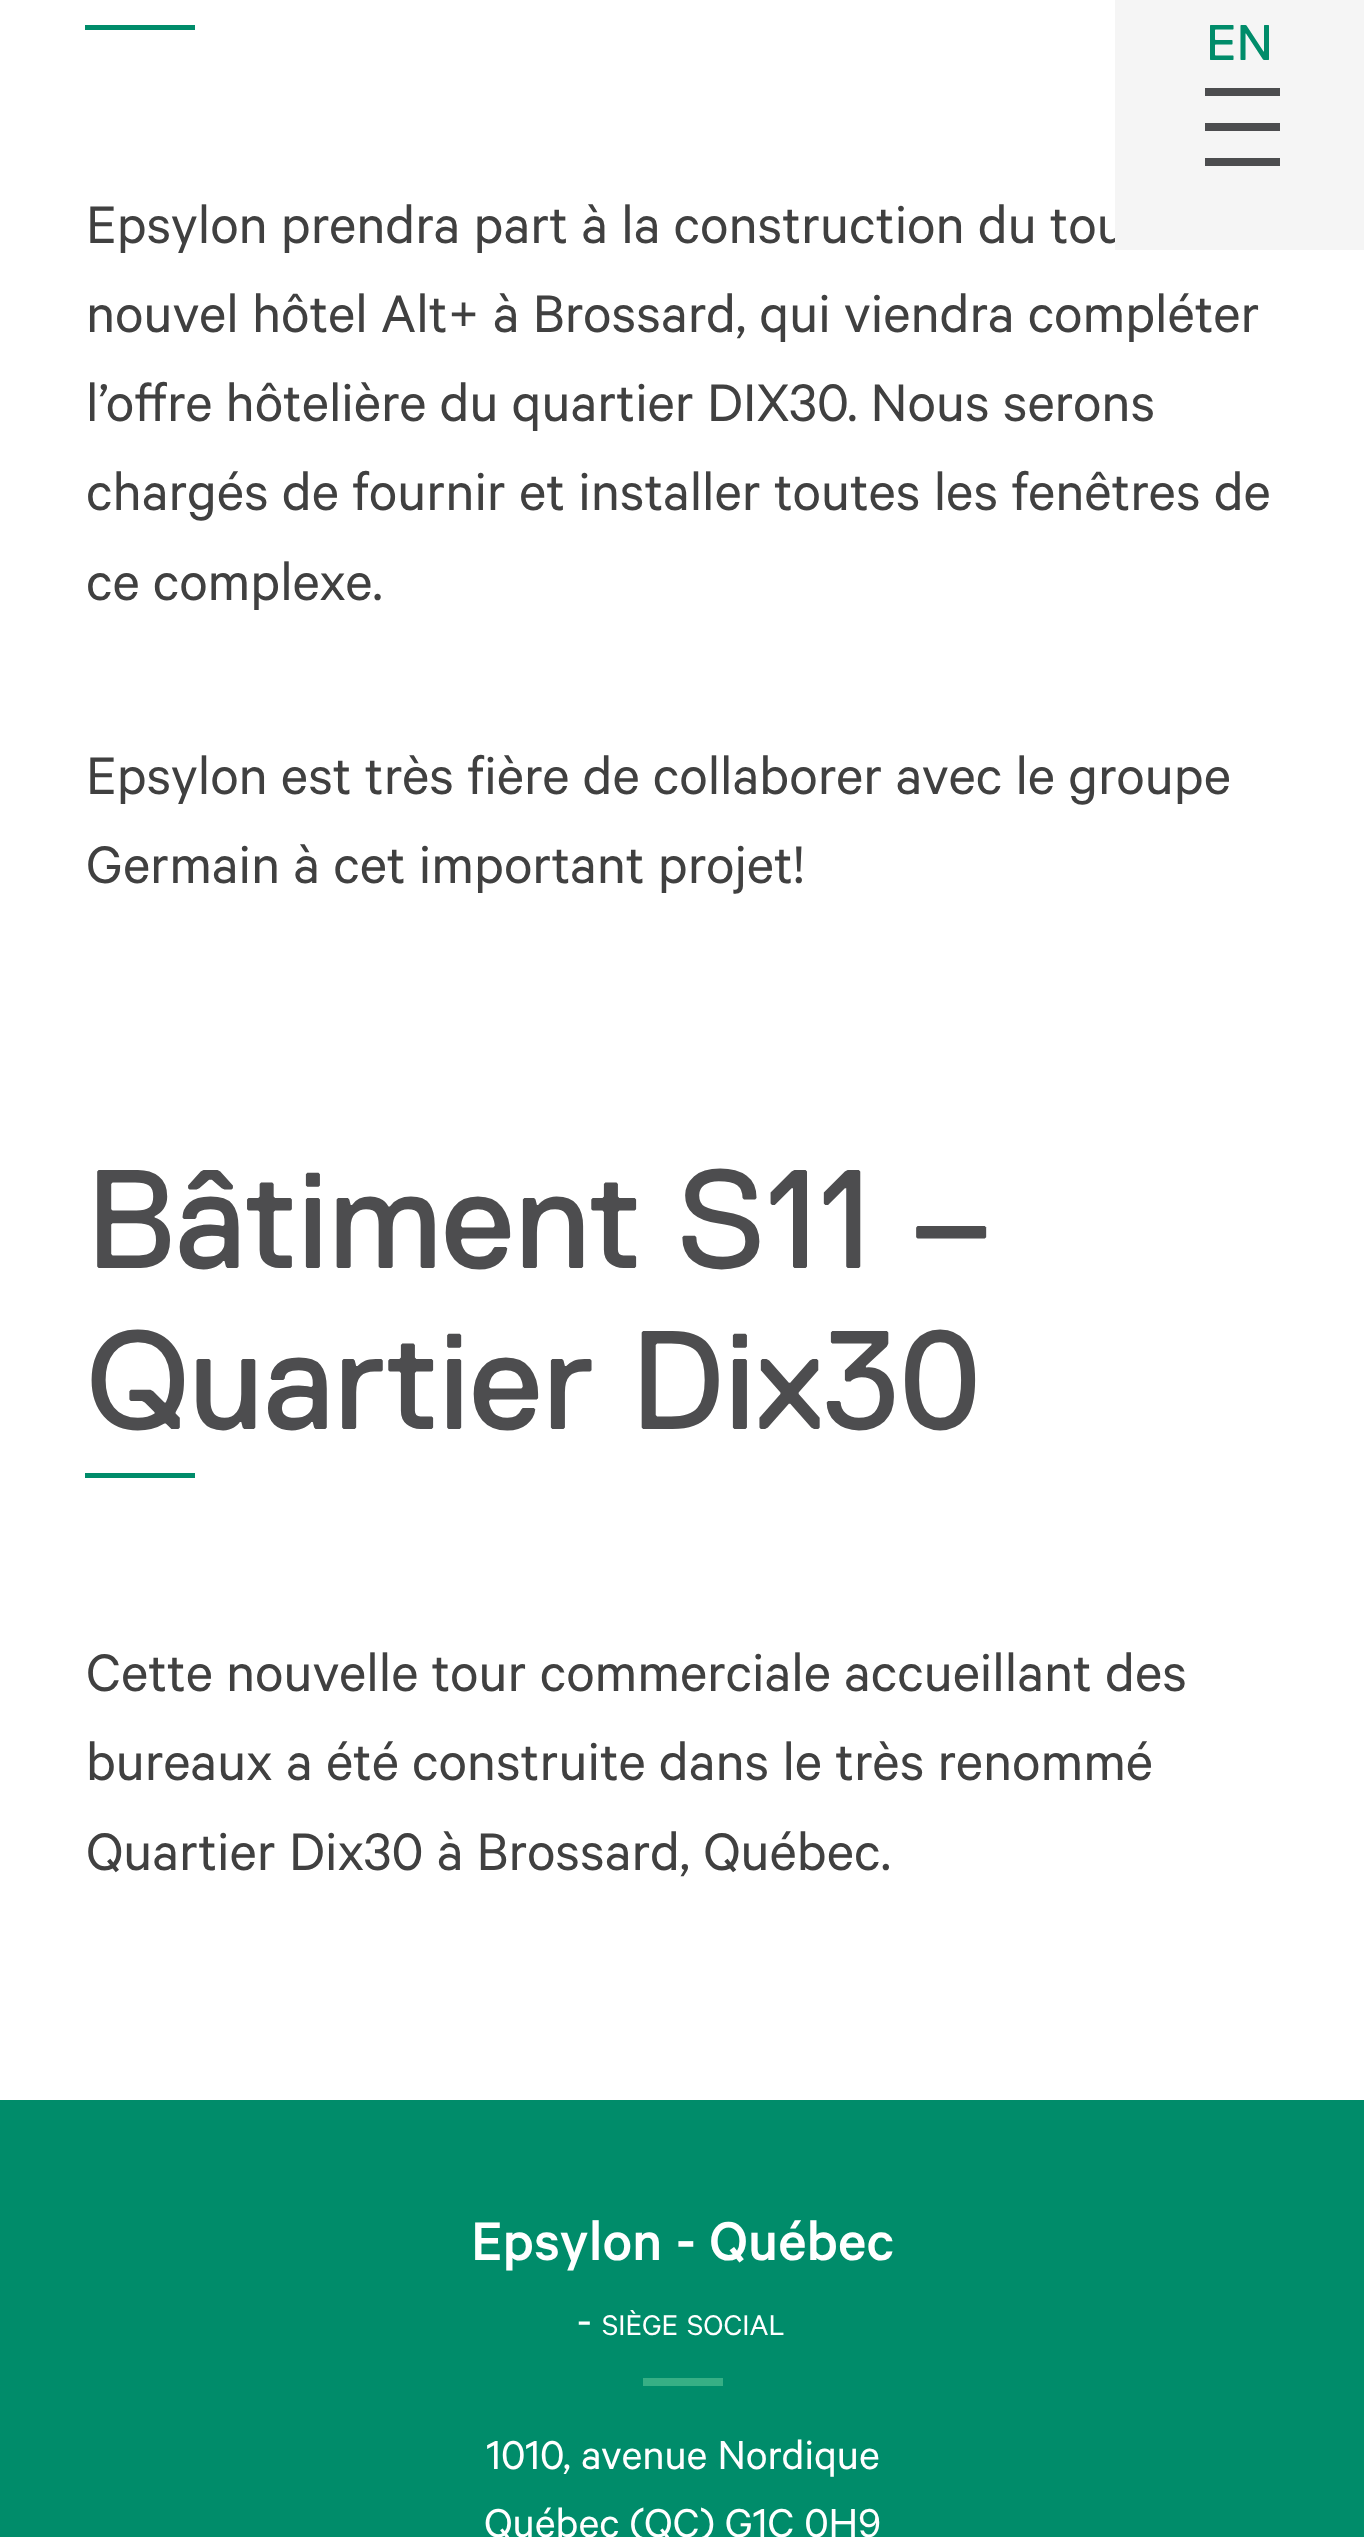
async function draw(canvas) {
  canvas.width = 1364;
  canvas.height = 2537;
  const ctx = canvas.getContext('2d');
  ctx.miterLimit = 4;
  ctx.fontKerning = 'normal';
  function label(s, x, y, font, color) {
    ctx.font = font;
    ctx.fillStyle = color;
    ctx.fillText(s, x, y);
  }
  function rect(x, y, w, h, color) {
    ctx.fillStyle = color;
    ctx.fillRect(x, y, w, h);
  }

  rect(0, 0, 1364, 2537, '#fff');
  label('Epsylon prendra part à la construction du tou', 86, 243, '59.5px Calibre', '#404040');
  rect(1115, 0, 249, 250, '#f5f5f5');
  label('EN', 1206, 60, '50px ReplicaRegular', '#008c6a');
  rect(1205, 88, 75, 8, '#4c4d4f');
  rect(1205, 123, 75, 8, '#4c4d4f');
  rect(1205, 158, 75, 8, '#4c4d4f');
  rect(85, 25, 110, 5, '#008c6a');
  label('nouvel hôtel Alt+ à Brossard, qui viendra compléter', 86, 332, '59.5px Calibre', '#404040');
  label('l’offre hôtelière du quartier DIX30. Nous serons', 86, 421, '59.5px Calibre', '#404040');
  label('chargés de fournir et installer toutes les fenêtres de', 86, 510, '59.5px Calibre', '#404040');
  label('ce complexe.', 86, 600, '59.5px Calibre', '#404040');
  label('Epsylon est très fière de collaborer avec le groupe', 86, 794, '59.5px Calibre', '#404040');
  label('Germain à cet important projet!', 86, 883, '59.5px Calibre', '#404040');
  label('Bâtiment S11 –', 86, 1268, '140px ReplicaRegular', '#4d4d4f');
  label('Quartier Dix30', 86, 1429, '140px ReplicaRegular', '#4d4d4f');
  rect(85, 1473, 110, 5, '#008c6a');
  label('Cette nouvelle tour commerciale accueillant des', 86, 1691, '59.5px Calibre', '#404040');
  label('bureaux a été construite dans le très renommé', 86, 1780, '59.5px Calibre', '#404040');
  label('Quartier Dix30 à Brossard, Québec.', 86, 1870, '59.5px Calibre', '#404040');
  rect(0, 2100, 1364, 437, '#008c6a');
  label('Epsylon - Québec', 471, 2260, '500 61.25px Calibre', '#fff');
  label('-', 577, 2335, '45.5px Calibre', '#fff');
  label('SIÈGE', 602, 2335, '32px Calibre', '#fff');
  label('SOCIAL', 687, 2335, '32px Calibre', '#fff');
  rect(643, 2378, 80, 8, '#37af85');
  label('1010, avenue Nordique', 486, 2469, '45.5px Calibre', '#fff');
  label('Québec (QC) G1C 0H9', 484, 2537, '45.5px Calibre', '#fff');
}

draw(document.querySelector('canvas'));
